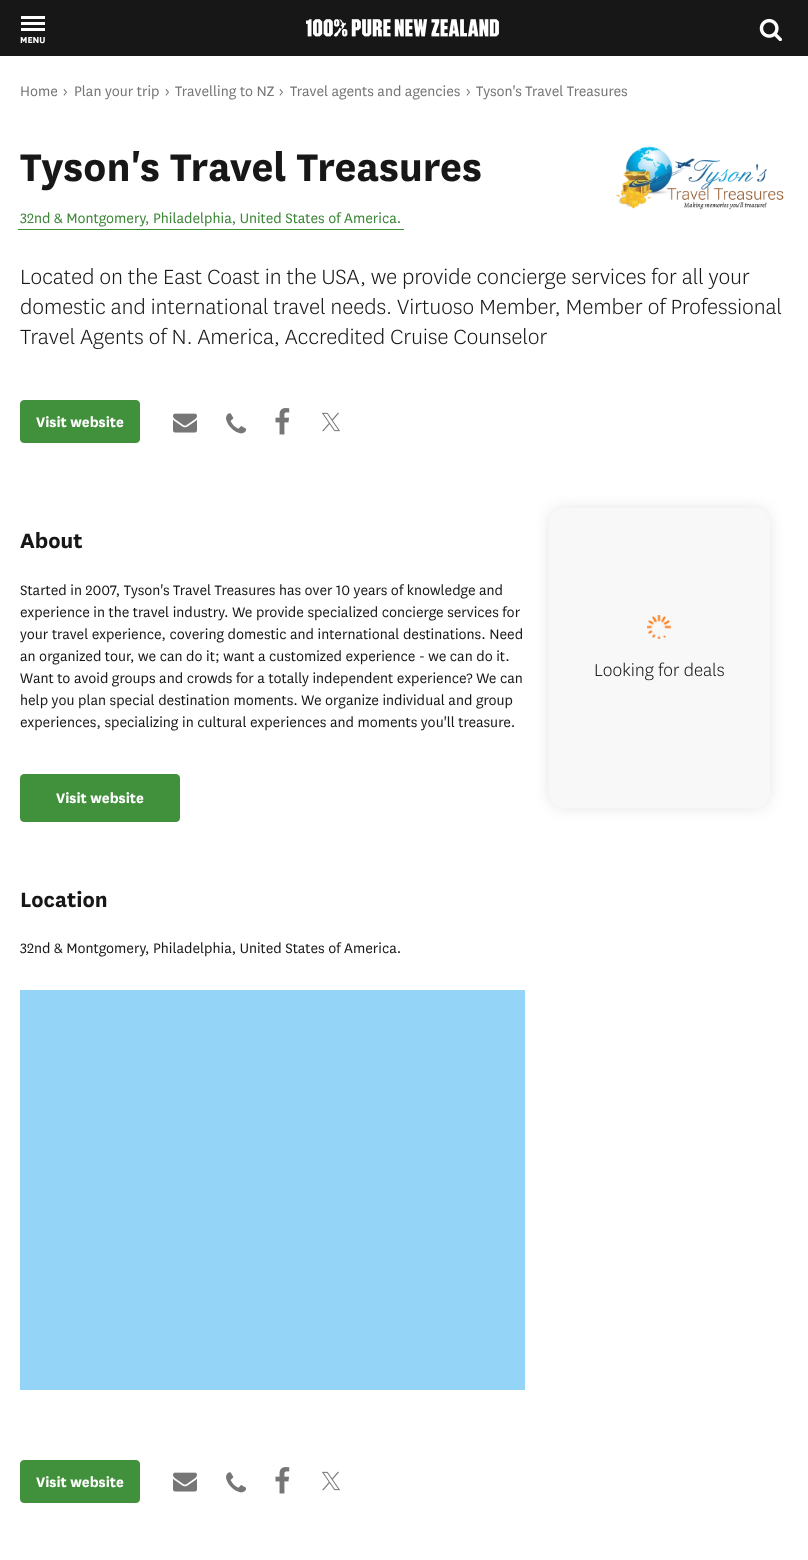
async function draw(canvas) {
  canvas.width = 808;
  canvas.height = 1560;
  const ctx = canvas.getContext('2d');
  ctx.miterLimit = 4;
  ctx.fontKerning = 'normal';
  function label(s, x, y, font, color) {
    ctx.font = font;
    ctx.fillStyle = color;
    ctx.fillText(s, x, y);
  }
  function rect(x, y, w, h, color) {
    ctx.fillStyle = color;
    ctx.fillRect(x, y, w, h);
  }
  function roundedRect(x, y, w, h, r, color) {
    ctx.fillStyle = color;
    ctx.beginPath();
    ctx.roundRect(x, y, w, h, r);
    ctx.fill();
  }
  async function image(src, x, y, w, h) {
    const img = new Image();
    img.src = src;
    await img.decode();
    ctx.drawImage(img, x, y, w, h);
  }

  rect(0, 0, 808, 1560, '#fff');
  rect(0, 0, 808, 56, '#171717');
  await image('assets/img1.png', 306, 19, 193, 18);
  await image('assets/img2.png', 759, 18, 23, 23);
  await image('assets/img3.png', 21, 16, 24, 15);
  label('MENU', 20, 43, '800 10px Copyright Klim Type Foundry', '#fff');
  label('Home', 20, 96, '500 16px Copyright Klim Type Foundry', '#767676');
  label('›', 63, 96, '500 16px Copyright Klim Type Foundry', '#767676');
  label('Plan your trip', 74, 96, '500 16px Copyright Klim Type Foundry', '#767676');
  label('›', 165, 96, '500 16px Copyright Klim Type Foundry', '#767676');
  label('Travelling to NZ', 175, 96, '500 16px Copyright Klim Type Foundry', '#767676');
  label('›', 279, 96, '500 16px Copyright Klim Type Foundry', '#767676');
  label('Travel agents and agencies', 290, 96, '500 16px Copyright Klim Type Foundry', '#767676');
  label('›', 466, 96, '500 16px Copyright Klim Type Foundry', '#767676');
  label('Tyson\'s Travel Treasures', 476, 96, '500 16px Copyright Klim Type Foundry', '#767676');
  label('Tyson\'s Travel Treasures', 20, 181, '800 45px Copyright Klim Type Foundry', '#171717');
  label('32nd & Montgomery', 20, 223, '500 16px Copyright Klim Type Foundry', '#3c8637');
  rect(18, 229, 386, 1, '#41913c');
  label(', Philadelphia, United States of America.', 145, 223, '500 16px Copyright Klim Type Foundry', '#3c8637');
  await image('assets/img4.png', 616, 146, 168, 64);
  await image('assets/img5.png', 22, 267, 728, 23);
  await image('assets/img6.png', 21, 297, 761, 20);
  await image('assets/img7.png', 20, 327, 527, 23);
  ctx.fillStyle = '#41913c';
  ctx.beginPath();
  ctx.roundRect(20.5, 400.5, 119, 42, 3.5);
  ctx.fill();
  ctx.strokeStyle = '#41913c';
  ctx.stroke();
  label('Visit website', 36, 427, '800 16px Copyright Klim Type Foundry', '#fff');
  await image('assets/img8.png', 173, 413, 24, 20);
  await image('assets/img9.png', 226, 413, 20, 21);
  await image('assets/img10.png', 275, 408, 15, 27);
  await image('assets/img11.png', 322, 412, 18, 20);
  label('About', 20, 548, '800 24px Copyright Klim Type Foundry', '#171717');
  label('Started in 2007, Tyson\'s Travel Treasures has over 10 years of knowledge and', 20, 595, '500 16px Copyright Klim Type Foundry', '#171717');
  label('experience in the travel industry. We provide specialized concierge services for', 20, 617, '500 16px Copyright Klim Type Foundry', '#171717');
  label('your travel experience, covering domestic and international destinations. Need', 20, 639, '500 16px Copyright Klim Type Foundry', '#171717');
  label('an organized tour, we can do it; want a customized experience - we can do it.', 20, 661, '500 16px Copyright Klim Type Foundry', '#171717');
  label('Want to avoid groups and crowds for a totally independent experience? We can', 20, 683, '500 16px Copyright Klim Type Foundry', '#171717');
  label('help you plan special destination moments. We organize individual and group', 20, 705, '500 16px Copyright Klim Type Foundry', '#171717');
  label('experiences, specializing in cultural experiences and moments you\'ll treasure.', 20, 727, '500 16px Copyright Klim Type Foundry', '#171717');
  ctx.fillStyle = '#41913c';
  ctx.beginPath();
  ctx.roundRect(20.5, 774.5, 159, 47, 3.5);
  ctx.fill();
  ctx.stroke();
  label('Visit website', 56, 803, '800 16px Copyright Klim Type Foundry', '#fff');
  label('Location', 20, 907, '800 24px Copyright Klim Type Foundry', '#171717');
  label('32nd & Montgomery', 20, 953, '500 16px Copyright Klim Type Foundry', '#171717');
  label(', Philadelphia, United States of America.', 145, 953, '500 16px Copyright Klim Type Foundry', '#171717');
  rect(20, 990, 505, 400, '#94d5f7');
  ctx.fillStyle = '#0000001a';
  ctx.filter = 'blur(7.5px)';
  ctx.beginPath();
  ctx.roundRect(549, 508, 221, 300, 15);
  ctx.fill();
  ctx.filter = 'none';
  roundedRect(549, 508, 221, 300, 15, '#f8f8f8');
  await image('assets/img12.png', 647, 615, 24, 24);
  await image('assets/img13.png', 595, 662, 129, 19);
  ctx.fillStyle = '#41913c';
  ctx.beginPath();
  ctx.roundRect(20.5, 1460.5, 119, 42, 3.5);
  ctx.fill();
  ctx.stroke();
  label('Visit website', 36, 1487, '800 16px Copyright Klim Type Foundry', '#fff');
  await image('assets/img8.png', 173, 1472, 24, 20);
  await image('assets/img9.png', 226, 1472, 20, 21);
  await image('assets/img10.png', 275, 1467, 15, 27);
  await image('assets/img11.png', 322, 1471, 18, 20);
}

draw(document.querySelector('canvas'));
